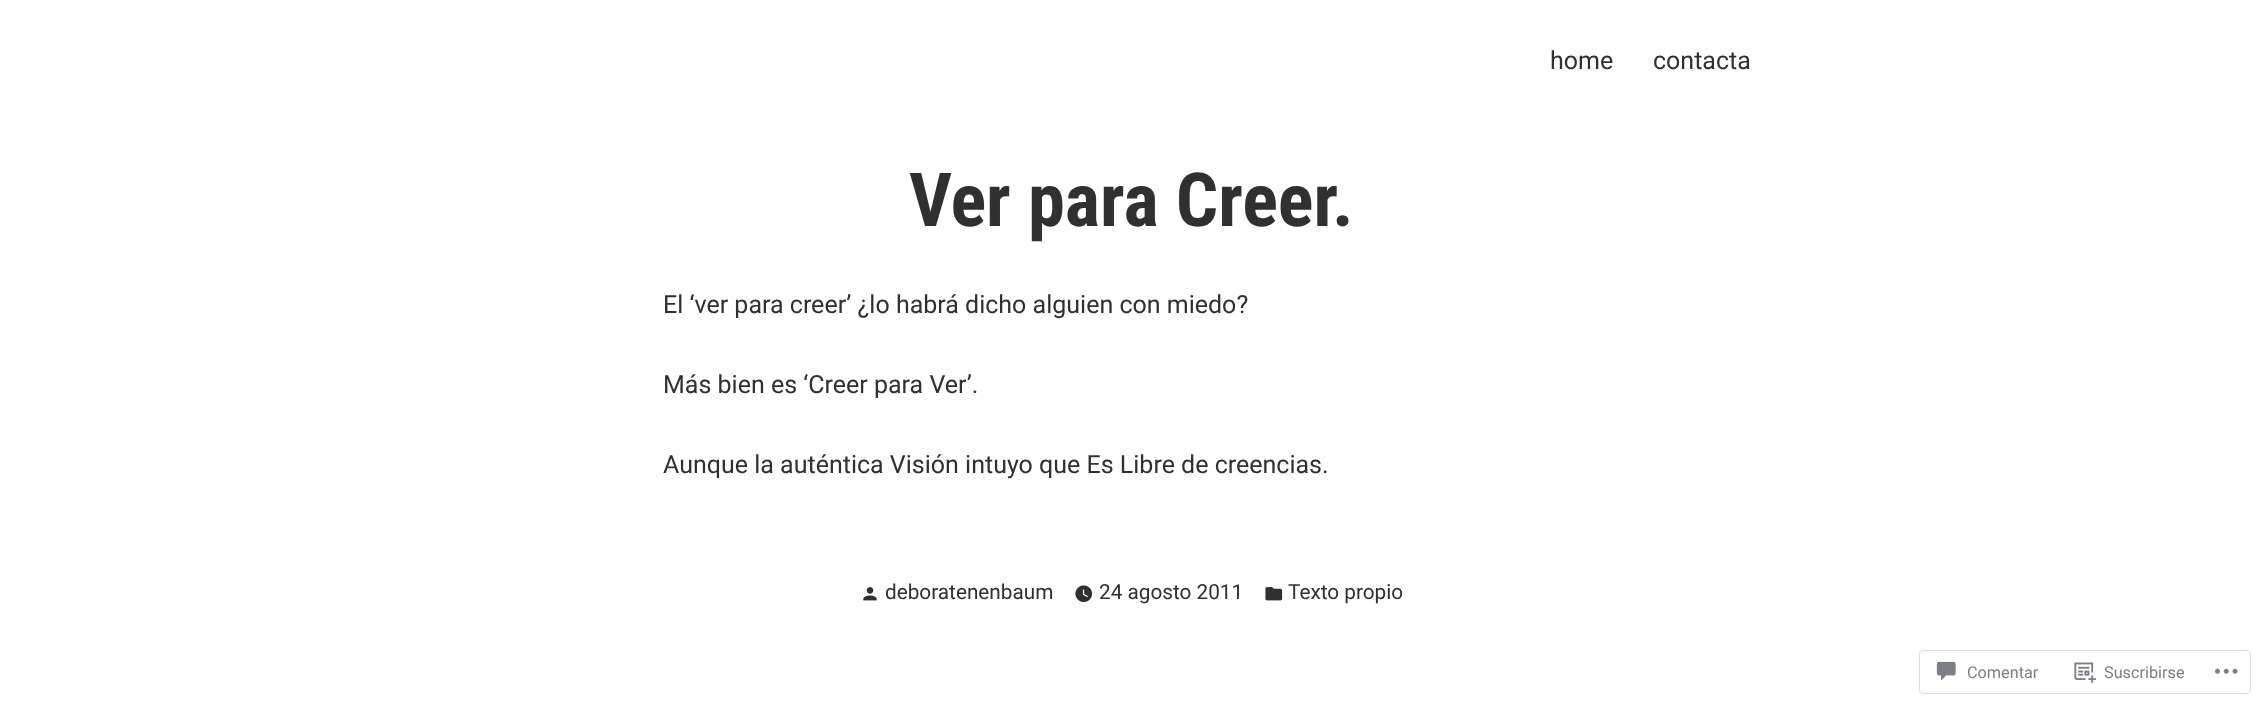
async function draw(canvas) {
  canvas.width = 2263;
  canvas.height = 706;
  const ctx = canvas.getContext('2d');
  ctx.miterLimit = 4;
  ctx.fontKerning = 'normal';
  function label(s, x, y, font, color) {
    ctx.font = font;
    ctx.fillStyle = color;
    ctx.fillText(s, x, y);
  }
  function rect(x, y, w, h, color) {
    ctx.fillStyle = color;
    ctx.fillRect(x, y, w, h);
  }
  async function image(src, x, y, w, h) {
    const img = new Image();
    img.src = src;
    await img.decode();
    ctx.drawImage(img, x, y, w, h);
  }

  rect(0, 0, 2263, 706, '#fff');
  label('home', 1550, 69, '25px Roboto', '#303030');
  label('contacta', 1653, 69, '25px Roboto', '#303030');
  label('Ver para Creer.', 909, 226, 'bold 74.5px Roboto Condensed', '#303030');
  label('El ‘ver para creer’ ¿lo habrá dicho alguien con miedo?', 663, 313, '25px Roboto', '#303030');
  label('Más bien es ‘Creer para Ver’.', 663, 393, '25px Roboto', '#303030');
  label('Aunque la auténtica Visión intuyo que Es Libre de creencias.', 663, 473, '25px Roboto', '#303030');
  await image('assets/img1.png', 863, 587, 14, 14);
  label('deboratenenbaum', 885, 599, '20.75px Roboto', '#303030');
  await image('assets/img2.png', 1075, 585, 18, 18);
  label('24 agosto 2011', 1099, 599, '20.75px Roboto', '#303030');
  await image('assets/img3.png', 1265, 587, 18, 14);
  label('Texto propio', 1288, 599, '20.75px Roboto', '#303030');
  ctx.beginPath();
  ctx.roundRect(1919.5, 650.5, 331, 43, 3.5);
  ctx.strokeStyle = '#dddddf';
  ctx.stroke();
  await image('assets/img4.png', 1936, 661, 20, 20);
  label('Comentar', 1967, 678, '16.25px Roboto', '#7b7f85');
  await image('assets/img5.png', 2074, 662, 22, 21);
  label('Suscribirse', 2104, 678, '16.25px Roboto', '#7b7f85');
  await image('assets/img6.png', 2215, 668, 23, 6);
}

draw(document.querySelector('canvas'));
